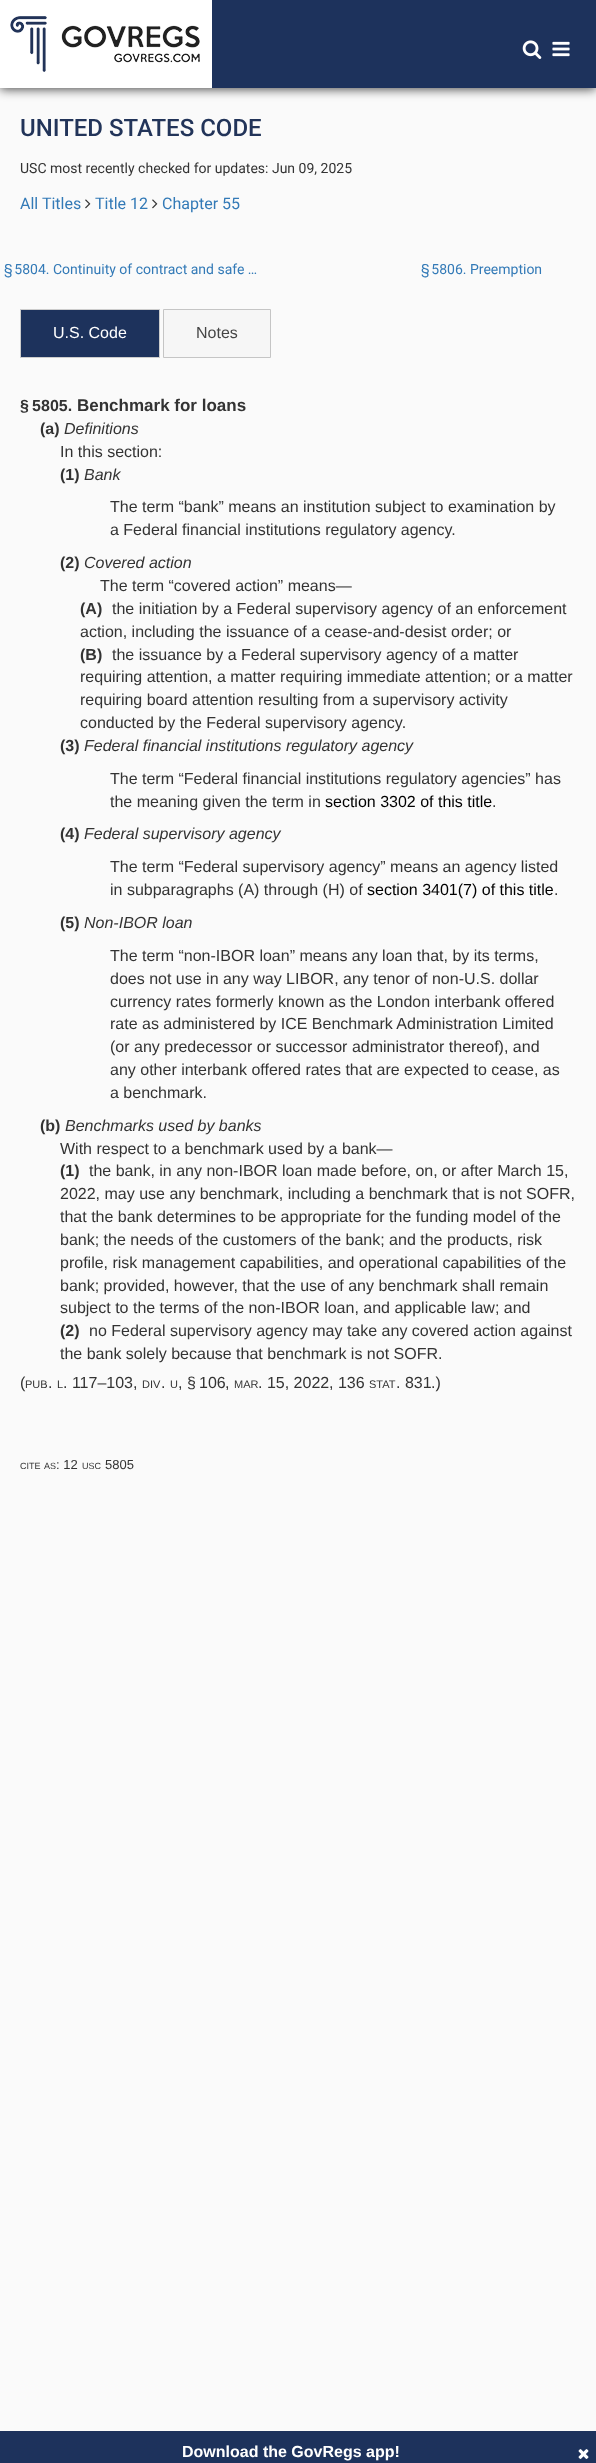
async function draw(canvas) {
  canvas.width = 596;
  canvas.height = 2463;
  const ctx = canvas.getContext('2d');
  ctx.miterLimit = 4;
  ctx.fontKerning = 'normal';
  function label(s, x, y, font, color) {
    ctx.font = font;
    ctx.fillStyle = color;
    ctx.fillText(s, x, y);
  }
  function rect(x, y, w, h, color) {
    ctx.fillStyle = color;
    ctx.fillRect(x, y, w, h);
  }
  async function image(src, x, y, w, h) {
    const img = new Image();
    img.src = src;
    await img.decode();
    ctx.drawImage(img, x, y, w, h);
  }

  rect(0, 0, 596, 2463, '#fafafa');
  ctx.fillStyle = '#000000bf';
  ctx.filter = 'blur(5.5px)';
  ctx.beginPath();
  ctx.rect(0, 1, 596, 88);
  ctx.fill();
  ctx.filter = 'none';
  rect(212, 0, 384, 88, '#1d325c');
  rect(0, 0, 212, 88, '#fff');
  await image('assets/img1.png', 10, 16, 190, 56);
  await image('assets/img2.png', 522, 40, 20, 19);
  await image('assets/img3.png', 552, 41, 18, 16);
  label('UNITED STATES CODE', 20, 136, '500 24px Roboto', '#223459');
  label('USC most recently checked for updates: Jun 09, 2025', 20, 173, '14px Roboto', '#333');
  label('All Titles', 20, 209, '16px Roboto', '#337ab7');
  await image('assets/img4.png', 85, 199, 6, 10);
  label('Title 12', 95, 209, '16px Roboto', '#337ab7');
  await image('assets/img4.png', 152, 199, 6, 10);
  label('Chapter 55', 162, 209, '16px Roboto', '#337ab7');
  label('§ 5804. Continuity of contract and safe …', 4, 274, '14px Roboto', '#337ab7');
  label('§ 5806. Preemption', 421, 274, '14px Roboto', '#337ab7');
  ctx.fillStyle = '#1d325c';
  ctx.beginPath();
  ctx.rect(20.5, 309.5, 139, 48);
  ctx.fill();
  ctx.strokeStyle = '#ccc';
  ctx.stroke();
  label('U.S. Code', 53, 338, '16px Liberation Sans', '#fff');
  ctx.fillStyle = '#f6f6f6';
  ctx.beginPath();
  ctx.rect(163.5, 309.5, 107, 48);
  ctx.fill();
  ctx.strokeStyle = '#c5c5c5';
  ctx.stroke();
  label('Notes', 196, 338, '16px Liberation Sans', '#454545');
  label('§ 5805.', 20, 411, 'bold 16px Liberation Sans', '#333');
  label('Benchmark for loans', 77, 411, 'bold 17px Liberation Sans', '#333');
  label('(a)', 40, 434, 'bold 16px Liberation Sans', '#333');
  label('Definitions', 64, 434, 'italic 16px Liberation Sans', '#333');
  label('In this section:', 60, 457, '16px Liberation Sans', '#333');
  label('(1)', 60, 480, 'bold 16px Liberation Sans', '#333');
  label('Bank', 84, 480, 'italic 16px Liberation Sans', '#333');
  label('The term “bank” means an institution subject to examination by', 110, 512, '16px Liberation Sans', '#333');
  label('a Federal financial institutions regulatory agency.', 110, 535, '16px Liberation Sans', '#333');
  label('(2)', 60, 568, 'bold 16px Liberation Sans', '#333');
  label('Covered action', 84, 568, 'italic 16px Liberation Sans', '#333');
  label('The term “covered action” means—', 100, 591, '16px Liberation Sans', '#333');
  label('(A)', 80, 614, 'bold 16px Liberation Sans', '#333');
  label('the initiation by a Federal supervisory agency of an enforcement', 112, 614, '16px Liberation Sans', '#333');
  label('action, including the issuance of a cease-and-desist order; or', 80, 637, '16px Liberation Sans', '#333');
  label('(B)', 80, 660, 'bold 16px Liberation Sans', '#333');
  label('the issuance by a Federal supervisory agency of a matter', 112, 660, '16px Liberation Sans', '#333');
  label('requiring attention, a matter requiring immediate attention; or a matter', 80, 682, '16px Liberation Sans', '#333');
  label('requiring board attention resulting from a supervisory activity', 80, 705, '16px Liberation Sans', '#333');
  label('conducted by the Federal supervisory agency.', 80, 728, '16px Liberation Sans', '#333');
  label('(3)', 60, 751, 'bold 16px Liberation Sans', '#333');
  label('Federal financial institutions regulatory agency', 84, 751, 'italic 16px Liberation Sans', '#333');
  label('The term “Federal financial institutions regulatory agencies” has', 110, 784, '16px Liberation Sans', '#333');
  label('the meaning given the term in', 110, 807, '16px Liberation Sans', '#333');
  label('section 3302 of this title', 325, 807, '16px Liberation Sans', '#000');
  label('.', 492, 807, '16px Liberation Sans', '#333');
  label('(4)', 60, 839, 'bold 16px Liberation Sans', '#333');
  label('Federal supervisory agency', 84, 839, 'italic 16px Liberation Sans', '#333');
  label('The term “Federal supervisory agency” means an agency listed', 110, 872, '16px Liberation Sans', '#333');
  label('in subparagraphs (A) through (H) of', 110, 895, '16px Liberation Sans', '#333');
  label('section 3401(7) of this title', 367, 895, '16px Liberation Sans', '#000');
  label('.', 554, 895, '16px Liberation Sans', '#333');
  label('(5)', 60, 928, 'bold 16px Liberation Sans', '#333');
  label('Non-IBOR loan', 84, 928, 'italic 16px Liberation Sans', '#333');
  label('The term “non-IBOR loan” means any loan that, by its terms,', 110, 961, '16px Liberation Sans', '#333');
  label('does not use in any way LIBOR, any tenor of non-U.S. dollar', 110, 984, '16px Liberation Sans', '#333');
  label('currency rates formerly known as the London interbank offered', 110, 1007, '16px Liberation Sans', '#333');
  label('rate as administered by ICE Benchmark Administration Limited', 110, 1029, '16px Liberation Sans', '#333');
  label('(or any predecessor or successor administrator thereof), and', 110, 1052, '16px Liberation Sans', '#333');
  label('any other interbank offered rates that are expected to cease, as', 110, 1075, '16px Liberation Sans', '#333');
  label('a benchmark.', 110, 1098, '16px Liberation Sans', '#333');
  label('(b)', 40, 1131, 'bold 16px Liberation Sans', '#333');
  label('Benchmarks used by banks', 65, 1131, 'italic 16px Liberation Sans', '#333');
  label('With respect to a benchmark used by a bank—', 60, 1154, '16px Liberation Sans', '#333');
  label('(1)', 60, 1176, 'bold 16px Liberation Sans', '#333');
  label('the bank, in any non-IBOR loan made before, on, or after March 15,', 89, 1176, '16px Liberation Sans', '#333');
  label('2022, may use any benchmark, including a benchmark that is not SOFR,', 60, 1199, '16px Liberation Sans', '#333');
  label('that the bank determines to be appropriate for the funding model of the', 60, 1222, '16px Liberation Sans', '#333');
  label('bank; the needs of the customers of the bank; and the products, risk', 60, 1245, '16px Liberation Sans', '#333');
  label('profile, risk management capabilities, and operational capabilities of the', 60, 1268, '16px Liberation Sans', '#333');
  label('bank; provided, however, that the use of any benchmark shall remain', 60, 1291, '16px Liberation Sans', '#333');
  label('subject to the terms of the non-IBOR loan, and applicable law; and', 60, 1313, '16px Liberation Sans', '#333');
  label('(2)', 60, 1336, 'bold 16px Liberation Sans', '#333');
  label('no Federal supervisory agency may take any covered action against', 89, 1336, '16px Liberation Sans', '#333');
  label('the bank solely because that benchmark is not SOFR.', 60, 1359, '16px Liberation Sans', '#333');
  label('(', 20, 1388, '16px Liberation Sans', '#333');
  label('PUB', 25, 1388, '11px Liberation Sans', '#333');
  label('.', 48, 1388, '16px Liberation Sans', '#333');
  label('L', 57, 1388, '11px Liberation Sans', '#333');
  label('. 117–103,', 63, 1388, '16px Liberation Sans', '#333');
  label('DIV', 142, 1388, '11px Liberation Sans', '#333');
  label('.', 161, 1388, '16px Liberation Sans', '#333');
  label('U', 170, 1388, '11px Liberation Sans', '#333');
  label(', § 106', 178, 1388, '16px Liberation Sans', '#333');
  label(',', 225, 1388, '16px Liberation Sans', '#333');
  label('MAR', 234, 1388, '11px Liberation Sans', '#333');
  label('. 15, 2022', 258, 1388, '16px Liberation Sans', '#333');
  label(', 136', 329, 1388, '16px Liberation Sans', '#333');
  label('STAT', 369, 1388, '11px Liberation Sans', '#333');
  label('. 831', 396, 1388, '16px Liberation Sans', '#333');
  label('.)', 431, 1388, '16px Liberation Sans', '#333');
  label('CITE', 20, 1469, '9px Liberation Sans', '#333');
  label('AS', 44, 1469, '9px Liberation Sans', '#333');
  label(': 12', 56, 1469, '13px Liberation Sans', '#333');
  label('USC', 82, 1469, '9px Liberation Sans', '#333');
  label('5805', 105, 1469, '13px Liberation Sans', '#333');
  rect(0, 2431, 596, 32, '#1d325c');
  label('Download the GovRegs app!', 182, 2457, 'bold 16px Liberation Sans', '#fff');
  await image('assets/img5.png', 578, 2449, 11, 10);
}

draw(document.querySelector('canvas'));
